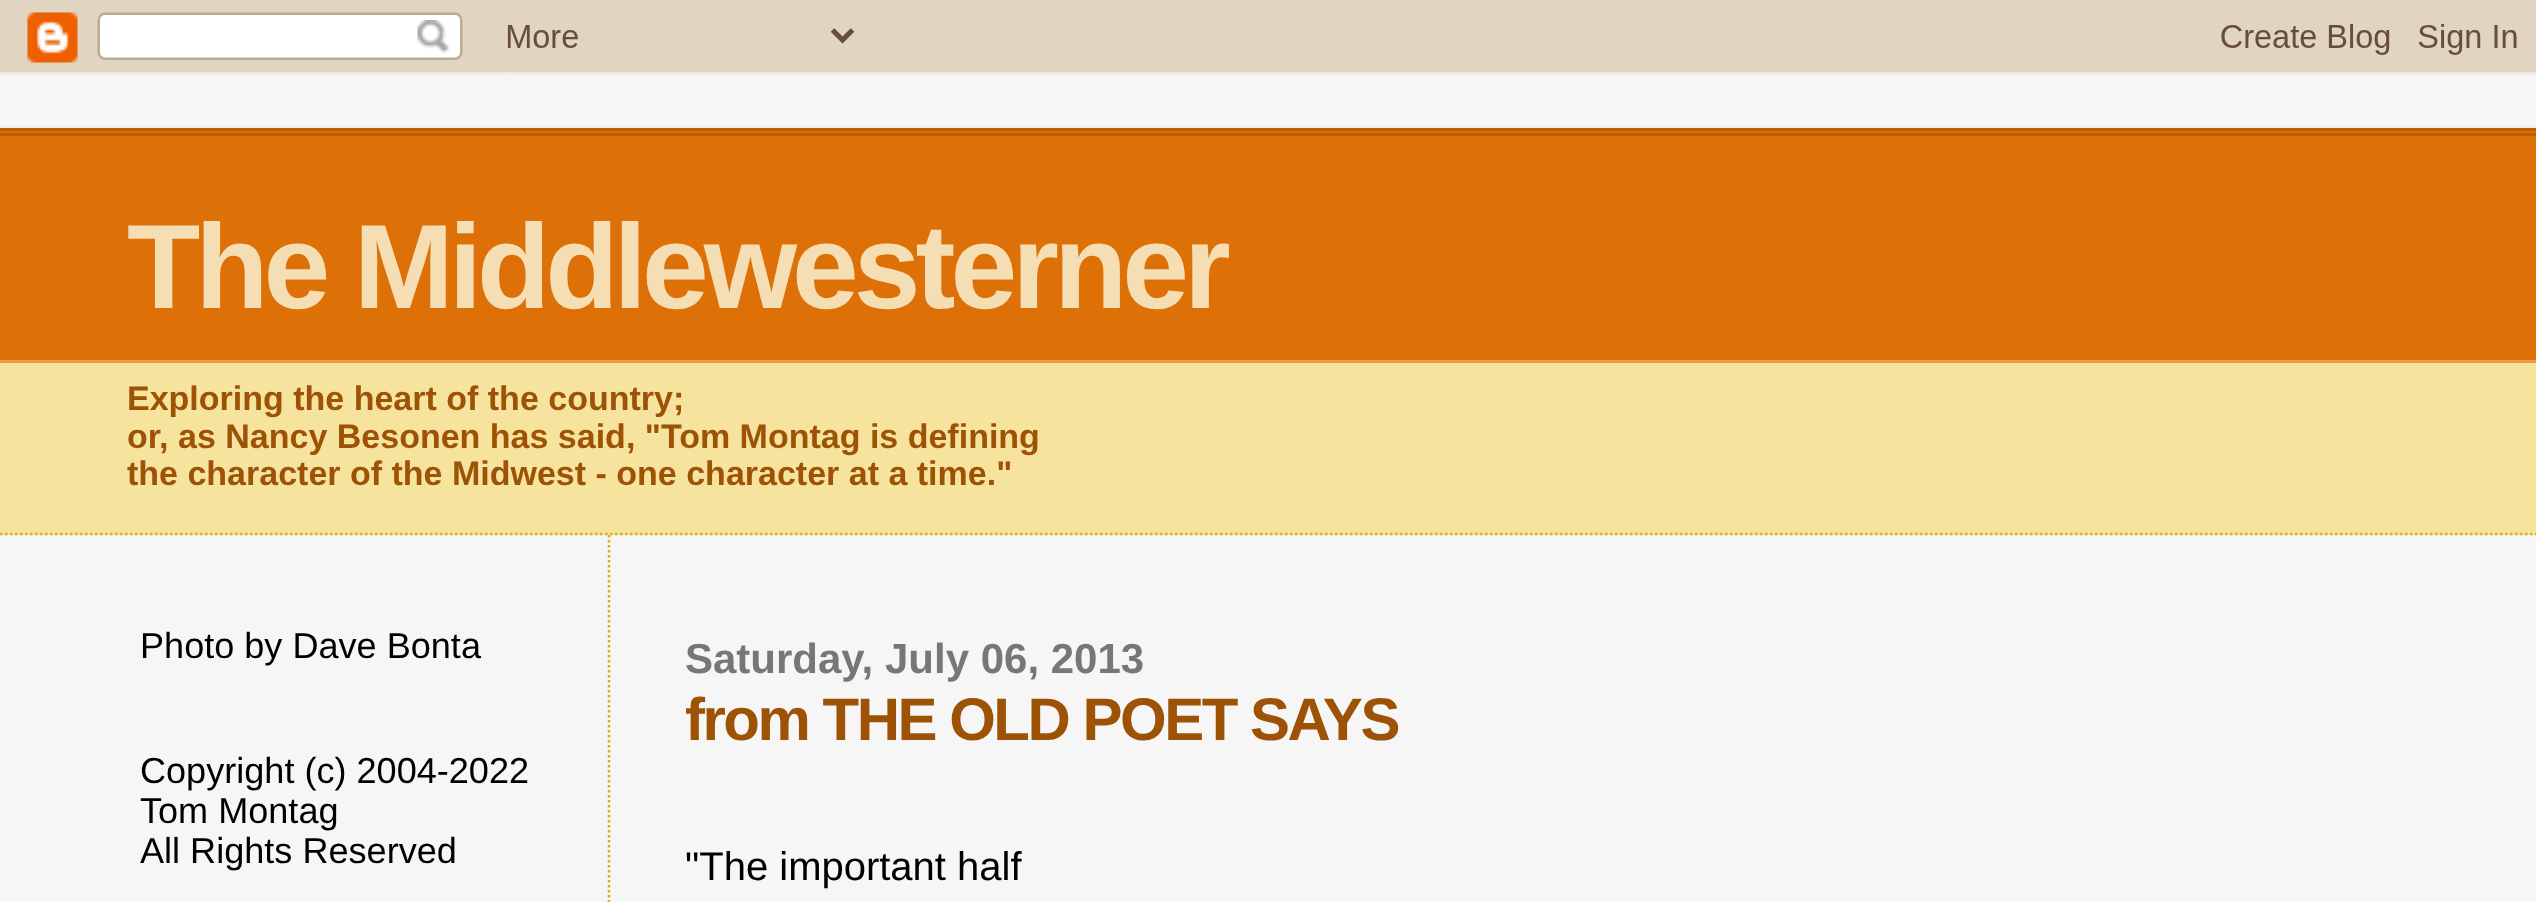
async function draw(canvas) {
  canvas.width = 2536;
  canvas.height = 902;
  const ctx = canvas.getContext('2d');
  ctx.miterLimit = 4;
  ctx.fontKerning = 'normal';
  function label(s, x, y, font, color) {
    ctx.font = font;
    ctx.fillStyle = color;
    ctx.fillText(s, x, y);
  }
  function rect(x, y, w, h, color) {
    ctx.fillStyle = color;
    ctx.fillRect(x, y, w, h);
  }
  async function image(src, x, y, w, h) {
    const img = new Image();
    img.src = src;
    await img.decode();
    ctx.drawImage(img, x, y, w, h);
  }
  let path;

  rect(0, 0, 2536, 902, '#f6f6f6');
  await image('assets/img1.png', 0, 0, 2536, 75);
  rect(0, 363, 2536, 172, '#f5e39e');
  rect(0, 125, 2536, 3, '#eee');
  path = new Path2D('M0 534H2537.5');
  ctx.strokeStyle = '#e0ad12';
  ctx.lineWidth = 2.5;
  ctx.setLineDash([2.5, 2.5]);
  ctx.stroke(path);
  rect(0, 131, 2536, 229, '#de7008');
  rect(0, 128, 2536, 3, '#bf5c00');
  rect(0, 133, 2536, 3, '#bf5c00');
  rect(0, 360, 2536, 3, '#e89e47');
  ctx.letterSpacing = '-5px';
  label('The Middlewesterner', 127, 308, 'bold 120px Liberation Sans', '#f5deb3');
  ctx.letterSpacing = '0px';
  label('Exploring the heart of the country;', 127, 410, 'bold 34px Liberation Sans', '#9e5205');
  label('or, as Nancy Besonen has said, "Tom Montag is defining', 127, 448, 'bold 34px Liberation Sans', '#9e5205');
  label('the character of the Midwest - one character at a time."', 127, 485, 'bold 34px Liberation Sans', '#9e5205');
  label('Photo by Dave Bonta', 140, 658, '36.1px Liberation Sans', '#000');
  label('Copyright (c) 2004-2022', 140, 783, '36.1px Liberation Sans', '#000');
  label('Tom Montag', 140, 823, '36.1px Liberation Sans', '#000');
  label('All Rights Reserved', 140, 863, '36.1px Liberation Sans', '#000');
  path = new Path2D('M609 535V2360');
  ctx.stroke(path);
  label('Saturday, July 06, 2013', 685, 673, 'bold 42px Liberation Sans', '#777');
  ctx.letterSpacing = '-2.5px';
  label('from THE OLD POET SAYS', 685, 740, 'bold 60px Liberation Sans', '#9e5205');
  ctx.letterSpacing = '0px';
  label('"The important half', 685, 880, '40px Liberation Sans', '#000');
}

draw(document.querySelector('canvas'));
